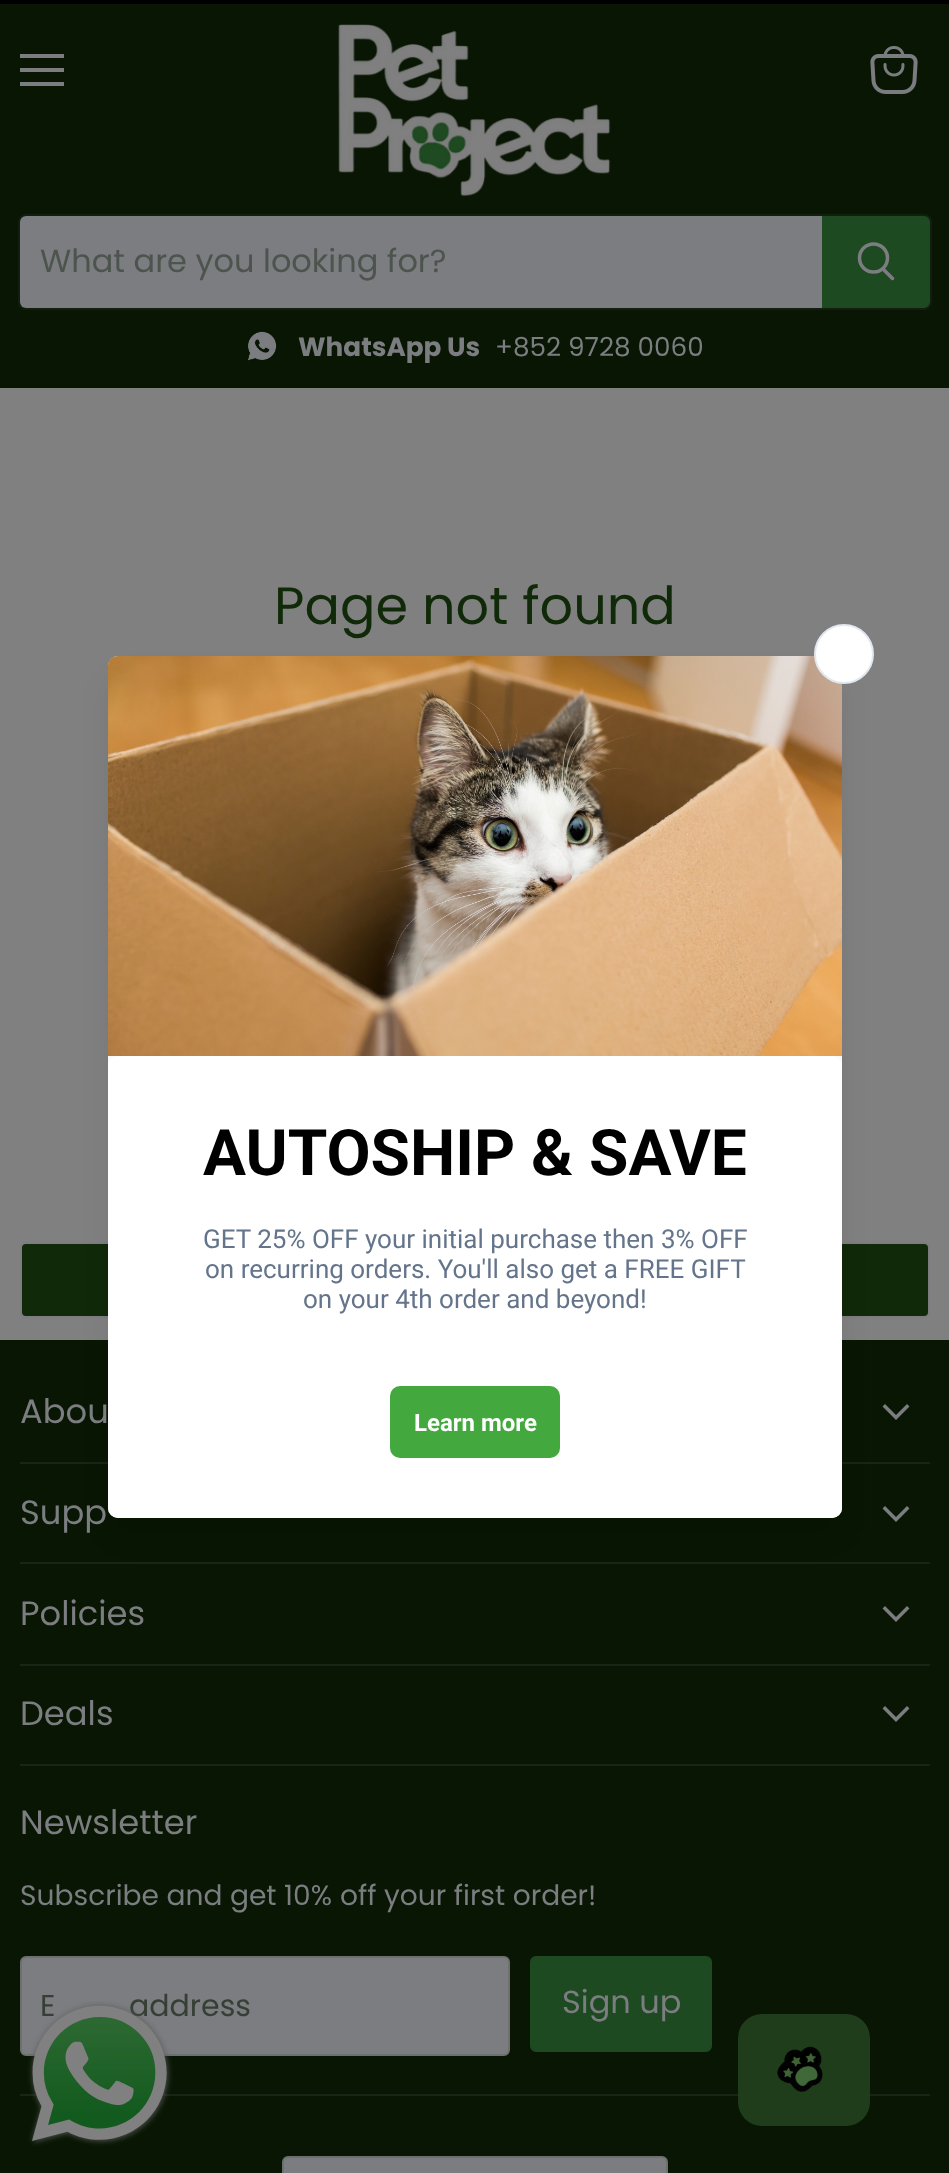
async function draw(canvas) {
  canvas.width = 949;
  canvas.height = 2173;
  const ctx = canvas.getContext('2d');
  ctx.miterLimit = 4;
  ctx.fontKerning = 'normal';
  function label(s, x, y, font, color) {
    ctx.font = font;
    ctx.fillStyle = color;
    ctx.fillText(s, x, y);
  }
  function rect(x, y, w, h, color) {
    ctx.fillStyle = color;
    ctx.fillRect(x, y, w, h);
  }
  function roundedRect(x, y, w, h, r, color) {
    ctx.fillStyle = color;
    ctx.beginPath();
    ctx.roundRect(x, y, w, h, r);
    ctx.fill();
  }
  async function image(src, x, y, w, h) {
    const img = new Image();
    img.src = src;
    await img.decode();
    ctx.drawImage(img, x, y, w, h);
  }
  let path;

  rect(0, 0, 949, 2173, '#808080');
  rect(0, 0, 949, 4, '#000');
  rect(0, 4, 949, 384, '#081603');
  rect(20, 54, 44, 4, '#7b7d80');
  rect(20, 68, 44, 4, '#7b7d80');
  rect(20, 82, 44, 4, '#7b7d80');
  await image('assets/img1.png', 870, 46, 48, 48);
  await image('assets/img2.png', 338, 24, 274, 173);
  ctx.beginPath();
  ctx.roundRect(19, 215, 912, 94, 7);
  ctx.strokeStyle = '#40404033';
  ctx.lineWidth = 2;
  ctx.stroke();
  ctx.beginPath();
  ctx.roundRect(20, 216, 802, 92, [6, 0, 0, 6]);
  ctx.fill();
  label('What are you looking for?', 40, 272, '32px Poppins', '#4d544e');
  ctx.fillStyle = '#1e4a21';
  ctx.beginPath();
  ctx.roundRect(823, 217, 106, 90, [0, 5, 5, 0]);
  ctx.fill();
  ctx.strokeStyle = '#1e4a21';
  ctx.stroke();
  path = new Path2D('M892.5 278.5L883 269');
  ctx.strokeStyle = '#7b7d80';
  ctx.lineWidth = 3.5;
  ctx.lineCap = 'round';
  ctx.stroke(path);
  ctx.beginPath();
  ctx.arc(873.5, 258, 14, 0, 2 * Math.PI);
  ctx.stroke();
  await image('assets/img3.png', 247, 331, 30, 30);
  label('WhatsApp Us', 298, 356, 'bold 26.25px Poppins', '#7b7d80');
  label('+852 9728 0060', 495, 356, '26.25px Poppins', '#7b7d80');
  label('Page not found', 274, 624, '52.5px Poppins', '#102908');
  ctx.beginPath();
  ctx.roundRect(21, 1243, 908, 74, 5);
  ctx.fill();
  ctx.lineWidth = 2;
  ctx.stroke();
  rect(0, 1340, 949, 833, '#081603');
  rect(20, 1462, 910, 2, '#192516');
  rect(20, 1562, 910, 2, '#192516');
  ctx.fillStyle = '#0000001a';
  ctx.filter = 'blur(15px)';
  ctx.beginPath();
  ctx.roundRect(114, 682, 722, 850, 4);
  ctx.fill();
  ctx.filter = 'none';
  roundedRect(108, 656, 734, 862, 10, '#fff');
  await image('assets/img4.png', 108, 656, 734, 400);
  ctx.beginPath();
  ctx.arc(844, 654, 29, 0, 2 * Math.PI);
  ctx.fill();
  ctx.strokeStyle = '#e2e8f0';
  ctx.stroke();
  path = new Path2D('M896 1417.5L907 1406.5M896 1417.5L885 1406.5');
  ctx.strokeStyle = '#7b7d80';
  ctx.lineWidth = 3.5;
  ctx.lineCap = 'square';
  ctx.stroke(path);
  path = new Path2D('M896 1519.5L907 1508.5M896 1519.5L885 1508.5');
  ctx.stroke(path);
  ctx.save();
  ctx.beginPath();
  ctx.rect(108, 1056, 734, 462);
  ctx.clip();
  ctx.fillStyle = '#0000001f';
  ctx.filter = 'blur(20px)';
  ctx.beginPath();
  ctx.roundRect(114, 1062, 722, 450, 4);
  ctx.fill();
  ctx.filter = 'none';
  ctx.restore();
  roundedRect(108, 1056, 734, 462, 10, '#fff');
  label('AUTOSHIP & SAVE', 203, 1175, 'bold 64px Roboto', '#000');
  label('GET 25% OFF your initial purchase then 3% OFF', 203, 1248, '26px Roboto', '#64748b');
  label('on recurring orders. You\'ll also get a FREE GIFT', 205, 1278, '26px Roboto', '#64748b');
  label('on your 4th order and beyond!', 303, 1308, '26px Roboto', '#64748b');
  roundedRect(390, 1386, 170, 72, 10, '#43a93f');
  label('Learn more', 414, 1431, 'bold 24px Roboto', '#fff');
  label('Abou', 20, 1423, '33.75px Poppins', '#7b7d80');
  label('Supp', 20, 1524, '33.75px Poppins', '#7b7d80');
  rect(20, 1664, 910, 2, '#192516');
  label('Policies', 20, 1625, '33.75px Poppins', '#7b7d80');
  path = new Path2D('M896 1619.5L907 1608.5M896 1619.5L885 1608.5');
  ctx.stroke(path);
  rect(20, 1764, 910, 2, '#192516');
  label('Deals', 20, 1725, '33.75px Poppins', '#7b7d80');
  path = new Path2D('M896 1719.5L907 1708.5M896 1719.5L885 1708.5');
  ctx.stroke(path);
  rect(20, 2094, 910, 2, '#192516');
  label('Newsletter', 20, 1834, '33.75px Poppins', '#7b7d80');
  label('Subscribe and get 10%', 20, 1905, '28.1px Poppins', '#7b7d80');
  label('off your first order!', 340, 1905, '28.1px Poppins', '#7b7d80');
  ctx.beginPath();
  ctx.roundRect(21, 1957, 488, 98, 5);
  ctx.fill();
  ctx.strokeStyle = '#6f6f6f';
  ctx.lineWidth = 2;
  ctx.stroke();
  label('E', 40, 2016, '30px Poppins', '#363f35');
  label('address', 129, 2016, '30px Poppins', '#363f35');
  ctx.fillStyle = '#1e4a21';
  ctx.beginPath();
  ctx.roundRect(531, 1957, 180, 94, 5);
  ctx.fill();
  ctx.strokeStyle = '#1e4a21';
  ctx.stroke();
  label('Sign up', 562, 2013, '32px Poppins', '#7b7d80');
  ctx.beginPath();
  ctx.roundRect(283, 2157, 384, 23, 5);
  ctx.fill();
  ctx.strokeStyle = '#6f6f6f';
  ctx.stroke();
  await image('assets/img5.png', 27, 2001, 146, 146);
  roundedRect(738, 2014, 132, 112, 24, '#1f3c1b');
  await image('assets/img6.png', 777, 2046, 46, 46);
}

draw(document.querySelector('canvas'));
